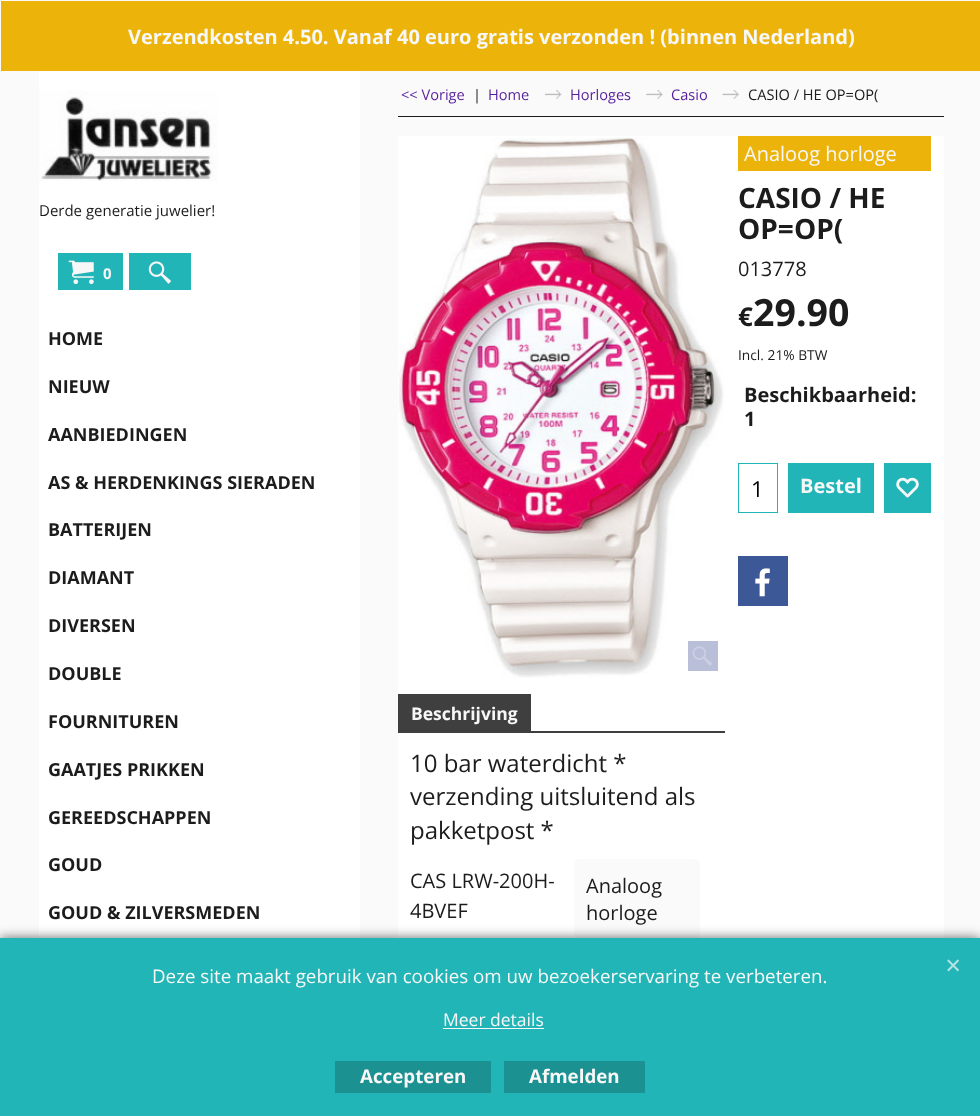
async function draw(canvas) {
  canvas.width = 980;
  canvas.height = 1116;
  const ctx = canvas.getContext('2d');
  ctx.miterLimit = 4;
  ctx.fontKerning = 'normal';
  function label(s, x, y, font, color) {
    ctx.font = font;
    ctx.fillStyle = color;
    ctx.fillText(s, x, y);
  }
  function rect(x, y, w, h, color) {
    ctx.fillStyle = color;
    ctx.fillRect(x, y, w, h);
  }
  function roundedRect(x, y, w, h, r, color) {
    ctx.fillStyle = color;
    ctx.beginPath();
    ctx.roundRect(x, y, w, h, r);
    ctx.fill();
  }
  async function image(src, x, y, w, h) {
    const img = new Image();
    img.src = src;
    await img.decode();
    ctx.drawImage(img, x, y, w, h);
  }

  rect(0, 0, 980, 1116, '#fafafa');
  rect(1, 1, 979, 70, '#ecb40b');
  label('Verzendkosten 4.50. Vanaf 40 euro gratis verzonden ! (binnen Nederland)', 128, 44, 'bold 20px Open Sans', '#f7f7f7');
  rect(39, 71, 321, 867, '#fff');
  await image('assets/img1.png', 39, 90, 179, 91);
  label('Derde generatie juwelier!', 39, 216, '15px Open Sans', '#1c1c1c');
  rect(58, 253, 65, 37, '#22b5b7');
  await image('assets/img2.png', 68, 260, 26, 24);
  label('0', 103, 279, 'bold 15px Open Sans', '#f7f7f7');
  rect(129, 253, 62, 37, '#22b5b7');
  await image('assets/img3.png', 148, 261, 24, 23);
  label('HOME', 48, 345, 'bold 18px Open Sans', '#1c1c1c');
  label('NIEUW', 48, 393, 'bold 18px Open Sans', '#1c1c1c');
  label('AANBIEDINGEN', 48, 441, 'bold 18px Open Sans', '#1c1c1c');
  label('AS & HERDENKINGS SIERADEN', 48, 489, 'bold 18px Open Sans', '#1c1c1c');
  label('BATTERIJEN', 48, 536, 'bold 18px Open Sans', '#1c1c1c');
  label('DIAMANT', 48, 584, 'bold 18px Open Sans', '#1c1c1c');
  label('DIVERSEN', 48, 632, 'bold 18px Open Sans', '#1c1c1c');
  label('DOUBLE', 48, 680, 'bold 18px Open Sans', '#1c1c1c');
  label('FOURNITUREN', 48, 728, 'bold 18px Open Sans', '#1c1c1c');
  label('GAATJES PRIKKEN', 48, 776, 'bold 18px Open Sans', '#1c1c1c');
  label('GEREEDSCHAPPEN', 48, 824, 'bold 18px Open Sans', '#1c1c1c');
  label('GOUD', 48, 871, 'bold 18px Open Sans', '#1c1c1c');
  label('GOUD & ZILVERSMEDEN', 48, 919, 'bold 18px Open Sans', '#1c1c1c');
  rect(398, 116, 546, 1, '#1c1c1c');
  label('<< Vorige', 401, 100, '14.6px Open Sans', '#571f9c');
  label('|', 473, 100, '14.6px Open Sans', '#1c1c1c');
  label('Home', 488, 100, '14.6px Open Sans', '#571f9c');
  await image('assets/img4.png', 545, 90, 17, 9);
  label('Horloges', 570, 100, '14.6px Open Sans', '#571f9c');
  await image('assets/img5.png', 646, 90, 17, 9);
  label('Casio', 671, 100, '14.6px Open Sans', '#571f9c');
  await image('assets/img6.png', 722, 90, 17, 9);
  label('CASIO / HE OP=OP(', 748, 100, '14.6px Open Sans', '#1c1c1c');
  rect(398, 136, 546, 802, '#fff');
  await image('assets/img7.png', 398, 137, 326, 541);
  rect(688, 641, 30, 30, '#b9bed9');
  await image('assets/img8.png', 692, 646, 20, 20);
  rect(738, 136, 193, 35, '#ecb40b');
  label('Analoog horloge', 744, 161, '20px Open Sans', '#f7f7f7');
  label('CASIO / HE', 738, 208, 'bold 28px Open Sans', '#1c1c1c');
  label('OP=OP(', 738, 239, 'bold 28px Open Sans', '#1c1c1c');
  label('013778', 738, 276, '20px Open Sans', '#1c1c1c');
  label('€', 738, 326, 'bold 26px Open Sans', '#1c1c1c');
  label('29.90', 753, 326, 'bold 37.5px Open Sans', '#1c1c1c');
  label('Incl. 21% BTW', 738, 360, '13.75px Open Sans', '#1c1c1c');
  label('Beschikbaarheid:', 744, 402, 'bold 20px Open Sans', '#1c1c1c');
  label('1', 744, 426, 'bold 20px Open Sans', '#1c1c1c');
  ctx.strokeStyle = '#22b5b7';
  ctx.strokeRect(738.5, 463.5, 39, 49);
  label('1', 751, 497, '22px Open Sans', '#000');
  rect(788, 463, 86, 50, '#22b5b7');
  label('Bestel', 800, 493, 'bold 20px Open Sans', '#f7f7f7');
  rect(884, 463, 47, 50, '#22b5b7');
  await image('assets/img9.png', 896, 477, 23, 21);
  rect(738, 556, 50, 50, '#3c5897');
  await image('assets/img10.png', 755, 568, 15, 29);
  rect(398, 694, 133, 39, '#3f3f3f');
  label('Beschrijving', 411, 720, 'bold 17.5px Open Sans', '#f7f7f7');
  rect(531, 731, 194, 2, '#3f3f3f');
  label('10 bar waterdicht *', 410, 772, '24px Open Sans', '#1c1c1c');
  label('verzending uitsluitend als', 410, 805, '24px Open Sans', '#1c1c1c');
  label('pakketpost *', 410, 839, '24px Open Sans', '#1c1c1c');
  label('CAS LRW-200H-', 410, 888, '20px Open Sans', '#1c1c1c');
  label('4BVEF', 410, 918, '20px Open Sans', '#1c1c1c');
  roundedRect(574, 859, 126, 80, 6, '#fafafa');
  label('Analoog', 586, 893, '20px Open Sans', '#1c1c1c');
  label('horloge', 586, 920, '20px Open Sans', '#1c1c1c');
  ctx.fillStyle = '#666';
  ctx.filter = 'blur(6px)';
  ctx.beginPath();
  ctx.rect(0, 938, 980, 178);
  ctx.fill();
  ctx.filter = 'none';
  rect(0, 938, 980, 178, '#22b5b7');
  await image('assets/img11.png', 947, 959, 13, 13);
  label('Deze site maakt gebruik van cookies om uw bezoekerservaring te verbeteren.', 152, 983, '18.75px Open Sans', '#f7f7f7');
  label('Meer details', 443, 1026, '17.5px Open Sans', '#f7f7f7');
  rect(443, 1028, 101, 1, '#f7f7f7');
  rect(335, 1061, 156, 32, '#1b9192');
  label('Accepteren', 360, 1083, 'bold 18.75px Open Sans', '#f7f7f7');
  rect(504, 1061, 141, 32, '#1b9192');
  label('Afmelden', 529, 1083, 'bold 18.75px Open Sans', '#f7f7f7');
}

draw(document.querySelector('canvas'));
